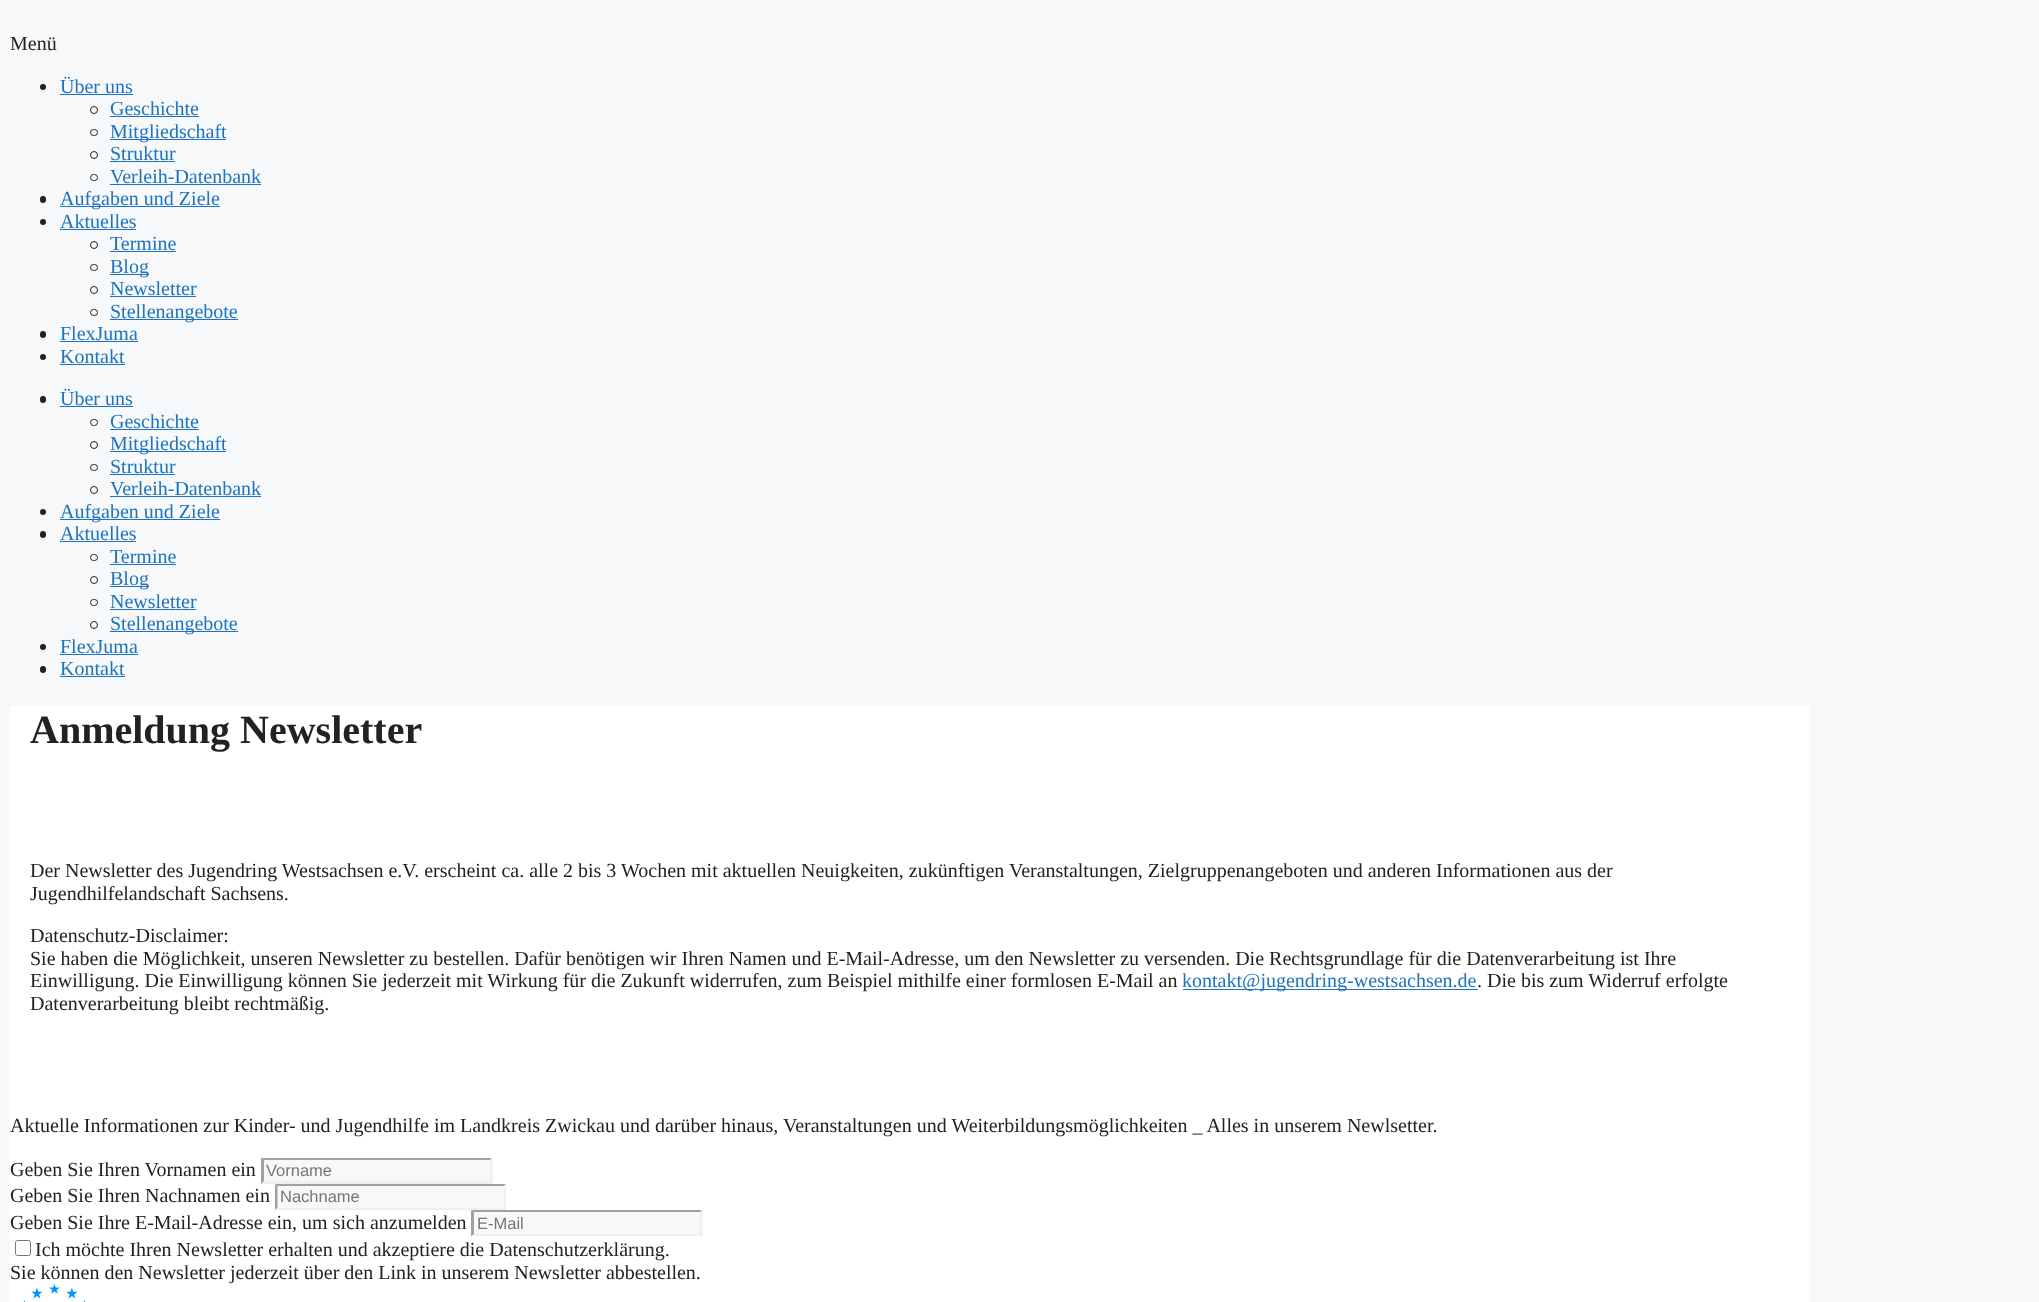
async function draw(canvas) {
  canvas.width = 2039;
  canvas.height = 1302;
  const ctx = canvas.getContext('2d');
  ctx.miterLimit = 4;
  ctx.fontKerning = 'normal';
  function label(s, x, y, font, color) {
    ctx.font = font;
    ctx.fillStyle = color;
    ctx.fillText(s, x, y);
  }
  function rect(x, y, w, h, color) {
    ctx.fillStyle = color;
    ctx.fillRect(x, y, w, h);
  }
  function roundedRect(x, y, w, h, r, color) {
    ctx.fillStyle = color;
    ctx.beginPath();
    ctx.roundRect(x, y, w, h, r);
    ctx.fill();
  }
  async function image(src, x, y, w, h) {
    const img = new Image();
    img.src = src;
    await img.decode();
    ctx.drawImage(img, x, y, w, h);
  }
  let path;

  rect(0, 0, 2039, 1302, '#f7f8f9');
  label('Menü', 10, 50, '20px Liberation Serif', '#222');
  ctx.beginPath();
  ctx.arc(43, 87, 3, 0, 2 * Math.PI);
  ctx.fill();
  label('Über uns', 60, 93, '20px Liberation Serif', '#1e73be');
  rect(60, 94, 73, 1, '#1e73be');
  ctx.beginPath();
  ctx.arc(94, 110, 3.5, 0, 2 * Math.PI);
  ctx.strokeStyle = '#222';
  ctx.stroke();
  label('Geschichte', 110, 115, '20px Liberation Serif', '#1e73be');
  rect(110, 116, 89, 1, '#1e73be');
  ctx.beginPath();
  ctx.roundRect(90.5, 129.5, 7, 6, 3);
  ctx.stroke();
  rect(110, 139, 116, 1, '#1e73be');
  label('Mitgliedschaft', 110, 138, '20px Liberation Serif', '#1e73be');
  ctx.beginPath();
  ctx.arc(94, 155, 3.5, 0, 2 * Math.PI);
  ctx.stroke();
  label('Struktur', 110, 160, '20px Liberation Serif', '#1e73be');
  rect(110, 161, 65, 1, '#1e73be');
  ctx.beginPath();
  ctx.roundRect(90.5, 174.5, 7, 6, 3);
  ctx.stroke();
  label('Verleih-Datenbank', 110, 183, '20px Liberation Serif', '#1e73be');
  rect(110, 184, 151, 1, '#1e73be');
  roundedRect(40, 196, 6, 7, 3, '#222');
  rect(60, 206, 160, 1, '#1e73be');
  label('Aufgaben und Ziele', 60, 205, '20px Liberation Serif', '#1e73be');
  ctx.fillStyle = '#222';
  ctx.beginPath();
  ctx.arc(43, 222, 3, 0, 2 * Math.PI);
  ctx.fill();
  label('Aktuelles', 60, 228, '20px Liberation Serif', '#1e73be');
  rect(60, 229, 76, 1, '#1e73be');
  ctx.beginPath();
  ctx.arc(94, 245, 3.5, 0, 2 * Math.PI);
  ctx.stroke();
  label('Termine', 110, 250, '20px Liberation Serif', '#1e73be');
  rect(110, 251, 66, 1, '#1e73be');
  ctx.beginPath();
  ctx.roundRect(90.5, 264.5, 7, 6, 3);
  ctx.stroke();
  rect(110, 274, 39, 1, '#1e73be');
  label('Blog', 110, 273, '20px Liberation Serif', '#1e73be');
  ctx.beginPath();
  ctx.arc(94, 290, 3.5, 0, 2 * Math.PI);
  ctx.stroke();
  label('Newsletter', 110, 295, '20px Liberation Serif', '#1e73be');
  rect(110, 296, 86, 1, '#1e73be');
  ctx.beginPath();
  ctx.roundRect(90.5, 309.5, 7, 6, 3);
  ctx.stroke();
  rect(110, 319, 128, 1, '#1e73be');
  label('Stellenangebote', 110, 318, '20px Liberation Serif', '#1e73be');
  roundedRect(40, 331, 6, 7, 3, '#222');
  label('FlexJuma', 60, 340, '20px Liberation Serif', '#1e73be');
  rect(60, 341, 78, 1, '#1e73be');
  ctx.fillStyle = '#222';
  ctx.beginPath();
  ctx.arc(43, 357, 3, 0, 2 * Math.PI);
  ctx.fill();
  label('Kontakt', 60, 363, '20px Liberation Serif', '#1e73be');
  rect(60, 364, 65, 1, '#1e73be');
  roundedRect(40, 396, 6, 7, 3, '#222');
  label('Über uns', 60, 405, '20px Liberation Serif', '#1e73be');
  rect(60, 406, 73, 1, '#1e73be');
  ctx.beginPath();
  ctx.roundRect(90.5, 419.5, 7, 6, 3);
  ctx.stroke();
  label('Geschichte', 110, 428, '20px Liberation Serif', '#1e73be');
  rect(110, 429, 89, 1, '#1e73be');
  ctx.beginPath();
  ctx.arc(94, 445, 3.5, 0, 2 * Math.PI);
  ctx.stroke();
  rect(110, 451, 116, 1, '#1e73be');
  label('Mitgliedschaft', 110, 450, '20px Liberation Serif', '#1e73be');
  ctx.beginPath();
  ctx.roundRect(90.5, 464.5, 7, 6, 3);
  ctx.stroke();
  label('Struktur', 110, 473, '20px Liberation Serif', '#1e73be');
  rect(110, 474, 65, 1, '#1e73be');
  ctx.beginPath();
  ctx.arc(94, 490, 3.5, 0, 2 * Math.PI);
  ctx.stroke();
  label('Verleih-Datenbank', 110, 495, '20px Liberation Serif', '#1e73be');
  rect(110, 496, 151, 1, '#1e73be');
  ctx.fillStyle = '#222';
  ctx.beginPath();
  ctx.arc(43, 512, 3, 0, 2 * Math.PI);
  ctx.fill();
  rect(60, 519, 160, 1, '#1e73be');
  label('Aufgaben und Ziele', 60, 518, '20px Liberation Serif', '#1e73be');
  roundedRect(40, 531, 6, 7, 3, '#222');
  label('Aktuelles', 60, 540, '20px Liberation Serif', '#1e73be');
  rect(60, 541, 76, 1, '#1e73be');
  ctx.beginPath();
  ctx.roundRect(90.5, 554.5, 7, 6, 3);
  ctx.stroke();
  label('Termine', 110, 563, '20px Liberation Serif', '#1e73be');
  rect(110, 564, 66, 1, '#1e73be');
  ctx.beginPath();
  ctx.arc(94, 580, 3.5, 0, 2 * Math.PI);
  ctx.stroke();
  rect(110, 586, 39, 1, '#1e73be');
  label('Blog', 110, 585, '20px Liberation Serif', '#1e73be');
  ctx.beginPath();
  ctx.roundRect(90.5, 599.5, 7, 6, 3);
  ctx.stroke();
  label('Newsletter', 110, 608, '20px Liberation Serif', '#1e73be');
  rect(110, 609, 86, 1, '#1e73be');
  ctx.beginPath();
  ctx.arc(94, 625, 3.5, 0, 2 * Math.PI);
  ctx.stroke();
  rect(110, 631, 128, 1, '#1e73be');
  label('Stellenangebote', 110, 630, '20px Liberation Serif', '#1e73be');
  ctx.fillStyle = '#222';
  ctx.beginPath();
  ctx.arc(43, 647, 3, 0, 2 * Math.PI);
  ctx.fill();
  label('FlexJuma', 60, 653, '20px Liberation Serif', '#1e73be');
  rect(60, 654, 78, 1, '#1e73be');
  roundedRect(40, 666, 6, 7, 3, '#222');
  label('Kontakt', 60, 675, '20px Liberation Serif', '#1e73be');
  rect(60, 676, 65, 1, '#1e73be');
  rect(10, 706, 1800, 596, '#fff');
  label('Anmeldung Newsletter', 30, 743, 'bold 40px Liberation Serif', '#222');
  label('Der Newsletter des Jugendring Westsachsen e.V. erscheint ca. alle 2 bis 3 Wochen mit aktuellen Neuigkeiten, zukünftigen Veranstaltungen, Zielgruppenangeboten und anderen Informationen aus der', 30, 877, '20px Liberation Serif', '#222');
  label('Jugendhilfelandschaft Sachsens.', 30, 900, '20px Liberation Serif', '#222');
  label('Datenschutz-Disclaimer:', 30, 942, '20px Liberation Serif', '#222');
  label('Sie haben die Möglichkeit, unseren Newsletter zu bestellen. Dafür benötigen wir Ihren Namen und E-Mail-Adresse, um den Newsletter zu versenden. Die Rechtsgrundlage für die Datenverarbeitung ist Ihre', 30, 965, '20px Liberation Serif', '#222');
  label('Einwilligung. Die Einwilligung können Sie jederzeit mit Wirkung für die Zukunft widerrufen, zum Beispiel mithilfe einer formlosen E-Mail an', 30, 987, '20px Liberation Serif', '#222');
  rect(1183, 989, 295, 1, '#1e73be');
  label('kontakt@jugendring-westsachsen.de', 1182, 987, '20px Liberation Serif', '#1e73be');
  label('. Die bis zum Widerruf erfolgte', 1477, 987, '20px Liberation Serif', '#222');
  label('Datenverarbeitung bleibt rechtmäßig.', 30, 1010, '20px Liberation Serif', '#222');
  label('Aktuelle Informationen zur Kinder- und Jugendhilfe im Landkreis Zwickau und darüber hinaus, Veranstaltungen und Weiterbildungsmöglichkeiten _ Alles in unserem Newlsetter.', 10, 1132, '20px Liberation Serif', '#222');
  label('Geben Sie Ihren Vornamen ein', 10, 1176, '20px Liberation Serif', '#222');
  rect(261, 1158, 232, 26, '#f7f8f9');
  ctx.fillStyle = '#a0a0a0';
  path = new Path2D('M261 1158H492L490 1160H264Z');
  ctx.fill(path);
  ctx.fillStyle = '#f0f0f0';
  path = new Path2D('M492.5 1157.5V1184L490 1181V1160Z');
  ctx.fill(path);
  path = new Path2D('M492 1184H261L264 1181H490Z');
  ctx.fill(path);
  ctx.fillStyle = '#a0a0a0';
  path = new Path2D('M261 1184V1157.5L264 1160V1181Z');
  ctx.fill(path);
  label('Vorname', 266, 1176, '16.5px Liberation Sans', '#757575');
  label('Geben Sie Ihren Nachnamen ein', 10, 1202, '20px Liberation Serif', '#222');
  rect(275, 1184, 231, 26, '#f7f8f9');
  ctx.fillStyle = '#a0a0a0';
  path = new Path2D('M275 1184H506L504 1186H278Z');
  ctx.fill(path);
  ctx.fillStyle = '#f0f0f0';
  path = new Path2D('M506 1184V1210L504 1207.5V1186Z');
  ctx.fill(path);
  path = new Path2D('M506 1210H275L278 1208H504Z');
  ctx.fill(path);
  ctx.fillStyle = '#a0a0a0';
  path = new Path2D('M275 1210V1184L277.5 1186V1207.5Z');
  ctx.fill(path);
  label('Nachname', 280, 1202, '16.5px Liberation Sans', '#757575');
  label('Geben Sie Ihre E-Mail-Adresse ein, um sich anzumelden', 10, 1229, '20px Liberation Serif', '#222');
  rect(471, 1210, 232, 26, '#f7f8f9');
  ctx.fillStyle = '#a0a0a0';
  path = new Path2D('M471 1210H702L700 1212H474Z');
  ctx.fill(path);
  ctx.fillStyle = '#f0f0f0';
  path = new Path2D('M702.5 1210V1236L700 1234V1212.5Z');
  ctx.fill(path);
  path = new Path2D('M702 1236H471L474 1234H700Z');
  ctx.fill(path);
  ctx.fillStyle = '#a0a0a0';
  path = new Path2D('M471 1236V1210L474 1212.5V1234Z');
  ctx.fill(path);
  label('E-Mail', 477, 1229, '16.5px Liberation Sans', '#757575');
  ctx.beginPath();
  ctx.roundRect(15.5, 1240.5, 15, 15, 2);
  ctx.strokeStyle = '#767676';
  ctx.stroke();
  label('Ich möchte Ihren Newsletter erhalten und akzeptiere die Datenschutzerklärung.', 35, 1256, '20px Liberation Serif', '#222');
  label('Sie können den Newsletter jederzeit über den Link in unserem Newsletter abbestellen.', 10, 1279, '20px Liberation Serif', '#222');
  await image('assets/img1.png', 23, 1284, 62, 18);
}

draw(document.querySelector('canvas'));
